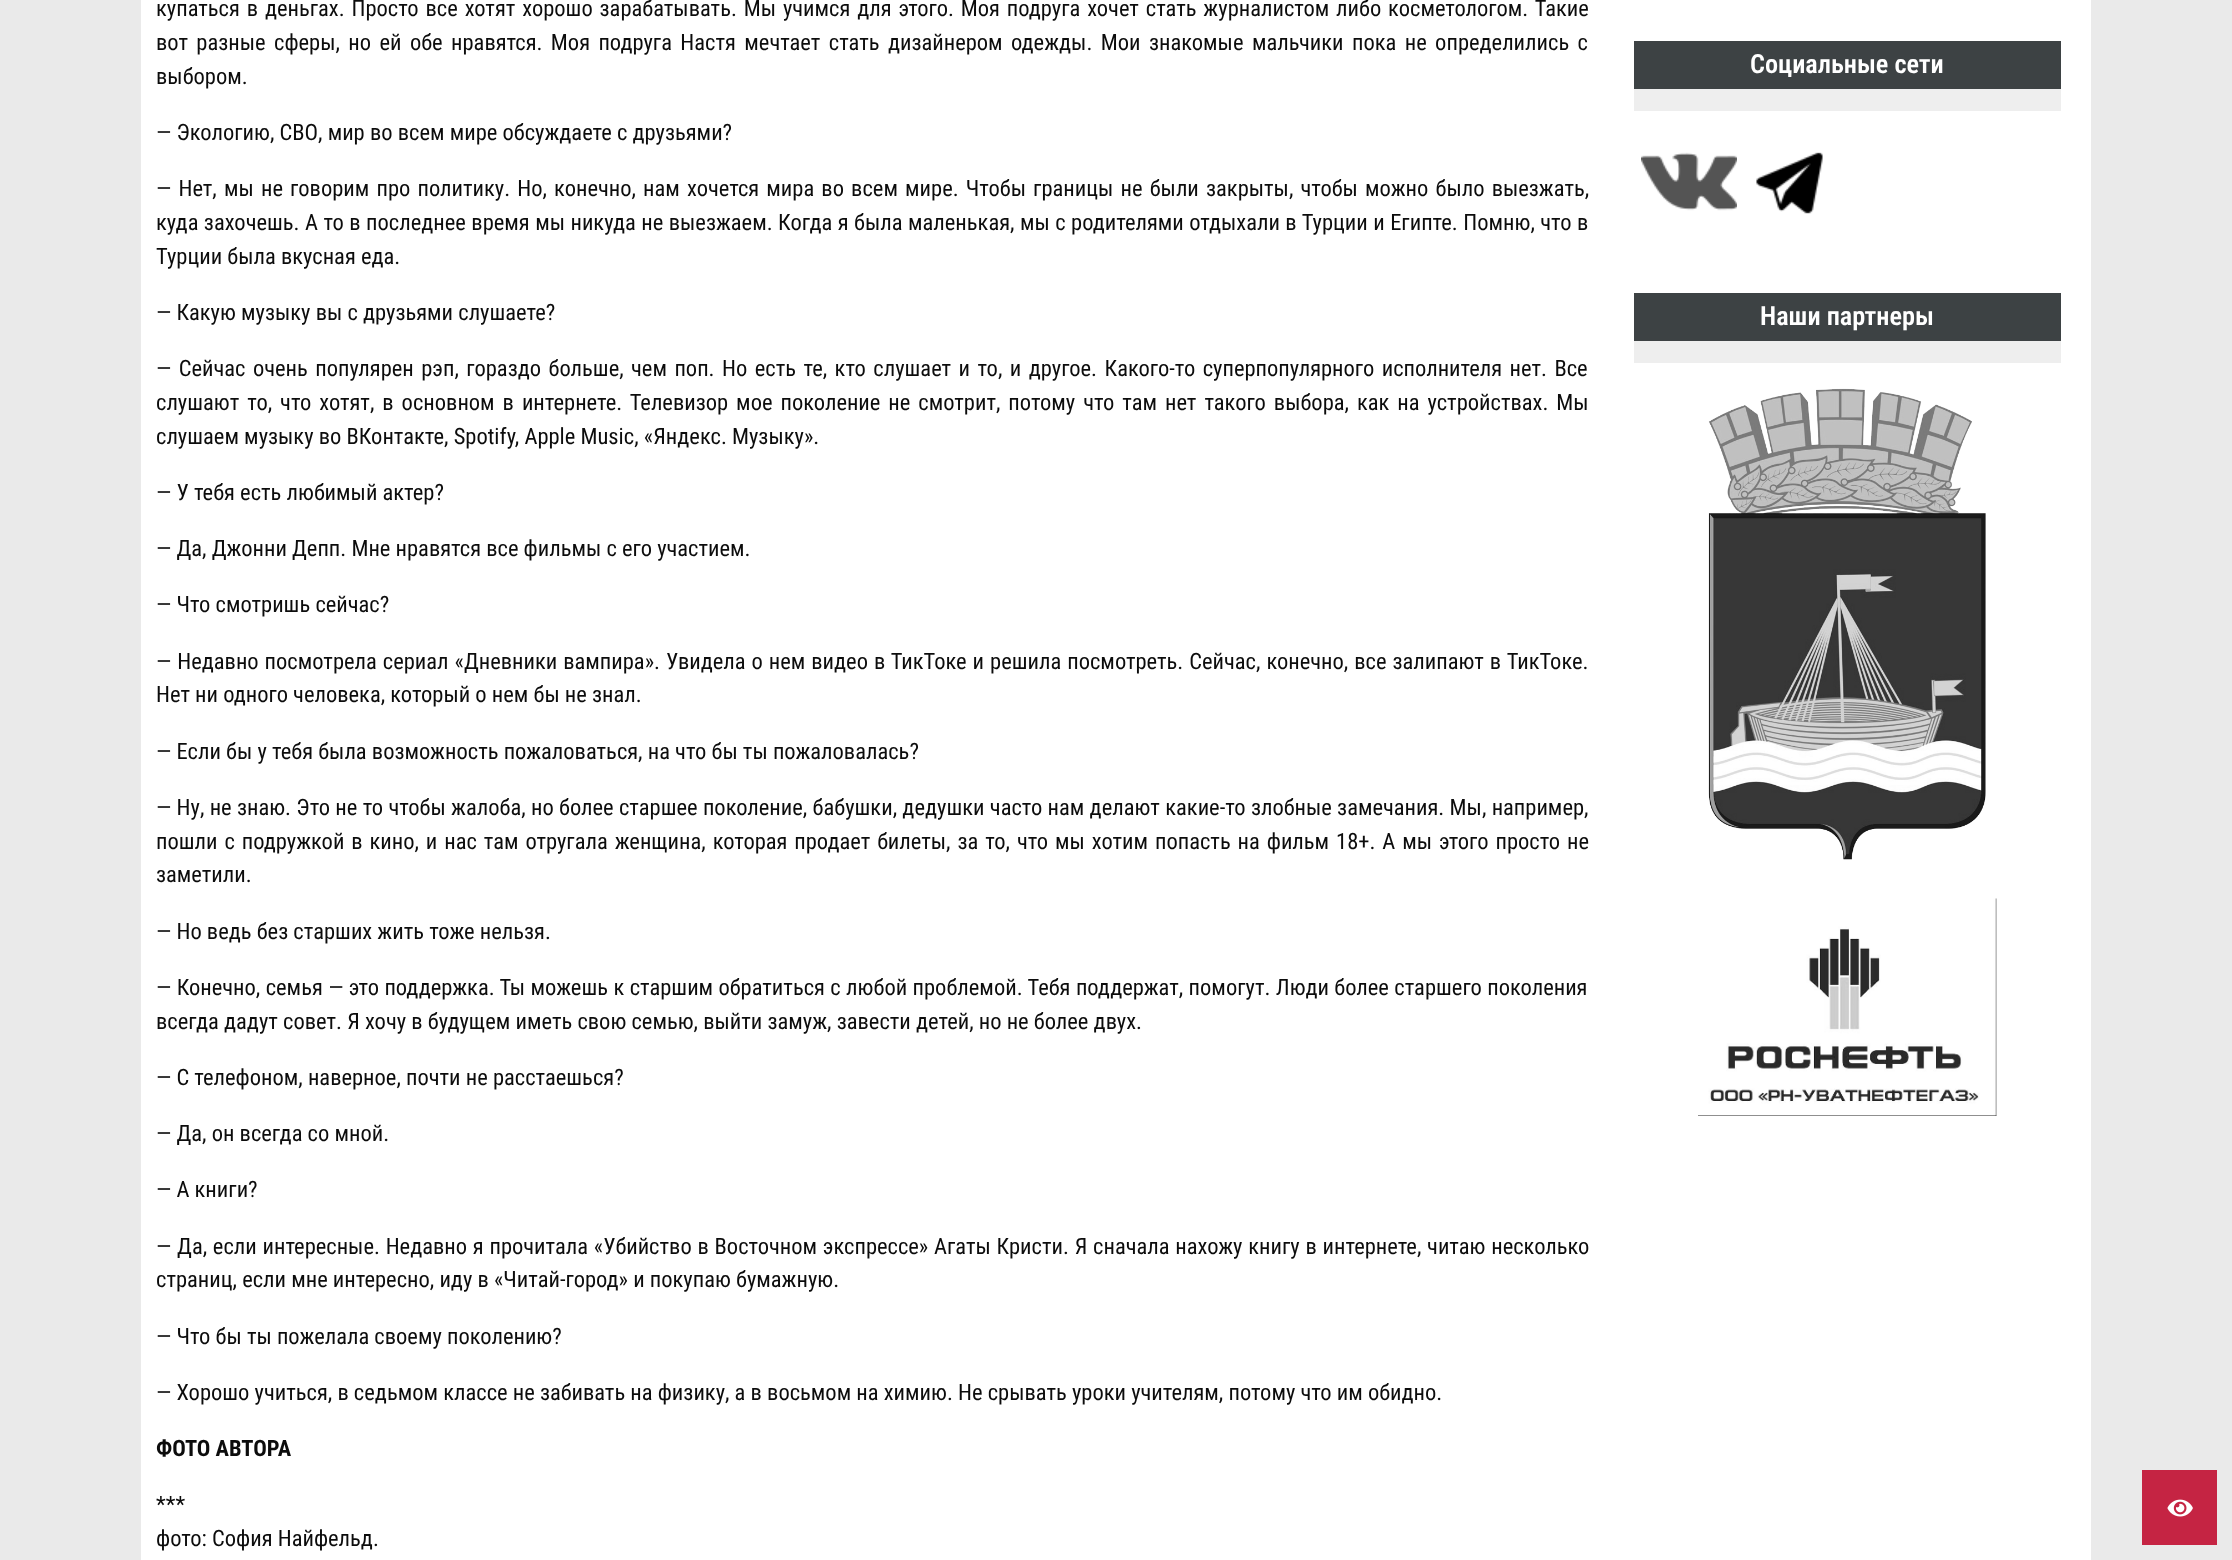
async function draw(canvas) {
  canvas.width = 2232;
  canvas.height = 1560;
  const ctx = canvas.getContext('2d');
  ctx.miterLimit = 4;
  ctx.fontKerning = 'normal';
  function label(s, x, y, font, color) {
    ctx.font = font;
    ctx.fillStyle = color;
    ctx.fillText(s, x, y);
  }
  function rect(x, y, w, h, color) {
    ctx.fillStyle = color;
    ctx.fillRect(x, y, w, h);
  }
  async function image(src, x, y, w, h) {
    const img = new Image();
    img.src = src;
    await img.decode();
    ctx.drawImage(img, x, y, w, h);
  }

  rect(0, 0, 2232, 1560, '#eaeaea');
  rect(141, 0, 1950, 1560, '#fff');
  ctx.wordSpacing = '1.7px';
  label('купаться в деньгах. Просто все хотят хорошо зарабатывать. Мы учимся для этого. Моя подруга хочет стать журналистом либо косметологом. Такие', 156, 16, '22.5px Roboto Condensed', '#0c0c0c');
  ctx.wordSpacing = '3.25px';
  label('вот разные сферы, но ей обе нравятся. Моя подруга Настя мечтает стать дизайнером одежды. Мои знакомые мальчики пока не определились с', 156, 50, '22.5px Roboto Condensed', '#0c0c0c');
  ctx.wordSpacing = '0px';
  label('выбором.', 156, 84, '22.5px Roboto Condensed', '#0c0c0c');
  label('— Экологию, СВО, мир во всем мире обсуждаете с друзьями?', 156, 140, '22.5px Roboto Condensed', '#0c0c0c');
  ctx.wordSpacing = '2px';
  label('— Нет, мы не говорим про политику. Но, конечно, нам хочется мира во всем мире. Чтобы границы не были закрыты, чтобы можно было выезжать,', 156, 196, '22.5px Roboto Condensed', '#0c0c0c');
  ctx.wordSpacing = '0.3px';
  label('куда захочешь. А то в последнее время мы никуда не выезжаем. Когда я была маленькая, мы с родителями отдыхали в Турции и Eгипте. Помню, что в', 156, 230, '22.5px Roboto Condensed', '#0c0c0c');
  ctx.wordSpacing = '0px';
  label('Турции была вкусная еда.', 156, 264, '22.5px Roboto Condensed', '#0c0c0c');
  label('— Какую музыку вы с друзьями слушаете?', 156, 320, '22.5px Roboto Condensed', '#0c0c0c');
  ctx.wordSpacing = '2.3px';
  label('— Сейчас очень популярен рэп, гораздо больше, чем поп. Но есть те, кто слушает и то, и другое. Какого-то суперпопулярного исполнителя нет. Все', 156, 376, '22.5px Roboto Condensed', '#0c0c0c');
  ctx.wordSpacing = '2.8px';
  label('слушают то, что хотят, в основном в интернете. Телевизор мое поколение не смотрит, потому что там нет такого выбора, как на устройствах. Мы', 156, 410, '22.5px Roboto Condensed', '#0c0c0c');
  ctx.wordSpacing = '0px';
  label('слушаем музыку во ВКонтакте, Spotify, Apple Music, «Яндекс. Музыку».', 156, 444, '22.5px Roboto Condensed', '#0c0c0c');
  label('— У тебя есть любимый актер?', 156, 500, '22.5px Roboto Condensed', '#0c0c0c');
  label('— Да, Джонни Депп. Мне нравятся все фильмы с его участием.', 156, 556, '22.5px Roboto Condensed', '#0c0c0c');
  label('— Что смотришь сейчас?', 156, 612, '22.5px Roboto Condensed', '#0c0c0c');
  ctx.wordSpacing = '0.8px';
  label('— Недавно посмотрела сериал «Дневники вампира». Увидела о нем видео в ТикТоке и решила посмотреть. Сейчас, конечно, все залипают в ТикТоке.', 156, 669, '22.5px Roboto Condensed', '#0c0c0c');
  ctx.wordSpacing = '0px';
  label('Нет ни одного человека, который о нем бы не знал.', 156, 702, '22.5px Roboto Condensed', '#0c0c0c');
  label('— Eсли бы у тебя была возможность пожаловаться, на что бы ты пожаловалась?', 156, 759, '22.5px Roboto Condensed', '#0c0c0c');
  ctx.wordSpacing = '0.15px';
  label('— Ну, не знаю. Это не то чтобы жалоба, но более старшее поколение, бабушки, дедушки часто нам делают какие-то злобные замечания. Мы, например,', 156, 815, '22.5px Roboto Condensed', '#0c0c0c');
  ctx.wordSpacing = '1.75px';
  label('пошли с подружкой в кино, и нас там отругала женщина, которая продает билеты, за то, что мы хотим попасть на фильм 18+. А мы этого просто не', 156, 849, '22.5px Roboto Condensed', '#0c0c0c');
  ctx.wordSpacing = '0px';
  label('заметили.', 156, 882, '22.5px Roboto Condensed', '#0c0c0c');
  label('— Но ведь без старших жить тоже нельзя.', 156, 939, '22.5px Roboto Condensed', '#0c0c0c');
  ctx.wordSpacing = '0.25px';
  label('— Конечно, семья — это поддержка. Ты можешь к старшим обратиться с любой проблемой. Тебя поддержат, помогут. Люди более старшего поколения', 156, 995, '22.5px Roboto Condensed', '#0c0c0c');
  ctx.wordSpacing = '0px';
  label('всегда дадут совет. Я хочу в будущем иметь свою семью, выйти замуж, завести детей, но не более двух.', 156, 1029, '22.5px Roboto Condensed', '#0c0c0c');
  label('— С телефоном, наверное, почти не расстаешься?', 156, 1085, '22.5px Roboto Condensed', '#0c0c0c');
  label('— Да, он всегда со мной.', 156, 1141, '22.5px Roboto Condensed', '#0c0c0c');
  label('— А книги?', 156, 1197, '22.5px Roboto Condensed', '#0c0c0c');
  ctx.wordSpacing = '0.6px';
  label('— Да, если интересные. Недавно я прочитала «Убийство в Восточном экспрессе» Агаты Кристи. Я сначала нахожу книгу в интернете, читаю несколько', 156, 1254, '22.5px Roboto Condensed', '#0c0c0c');
  ctx.wordSpacing = '0px';
  label('страниц, если мне интересно, иду в «Читай-город» и покупаю бумажную.', 156, 1287, '22.5px Roboto Condensed', '#0c0c0c');
  label('— Что бы ты пожелала своему поколению?', 156, 1344, '22.5px Roboto Condensed', '#0c0c0c');
  label('— Хорошо учиться, в седьмом классе не забивать на физику, а в восьмом на химию. Не срывать уроки учителям, потому что им обидно.', 156, 1400, '22.5px Roboto Condensed', '#0c0c0c');
  label('ФОТО АВТОРА', 156, 1456, 'bold 22.5px Roboto Condensed', '#0c0c0c');
  label('***', 156, 1512, '22.5px Roboto Condensed', '#0c0c0c');
  label('фото: София Найфельд.', 156, 1546, '22.5px Roboto Condensed', '#0c0c0c');
  rect(1634, 41, 427, 48, '#3d4244');
  rect(1634, 89, 427, 22, '#eee');
  label('Социальные сети', 1750, 73, '600 26.25px Roboto Condensed', '#fff');
  await image('assets/img1.png', 1641, 152, 96, 59);
  await image('assets/img2.png', 1756, 152, 67, 62);
  rect(1634, 293, 427, 48, '#3d4244');
  rect(1634, 341, 427, 22, '#eee');
  label('Наши партнеры', 1760, 325, '600 26.25px Roboto Condensed', '#fff');
  await image('assets/img3.png', 1708, 388, 278, 472);
  await image('assets/img4.png', 1698, 898, 299, 218);
  rect(2142, 1470, 75, 75, '#c52443');
  await image('assets/img5.png', 2167, 1499, 26, 18);
}

draw(document.querySelector('canvas'));
